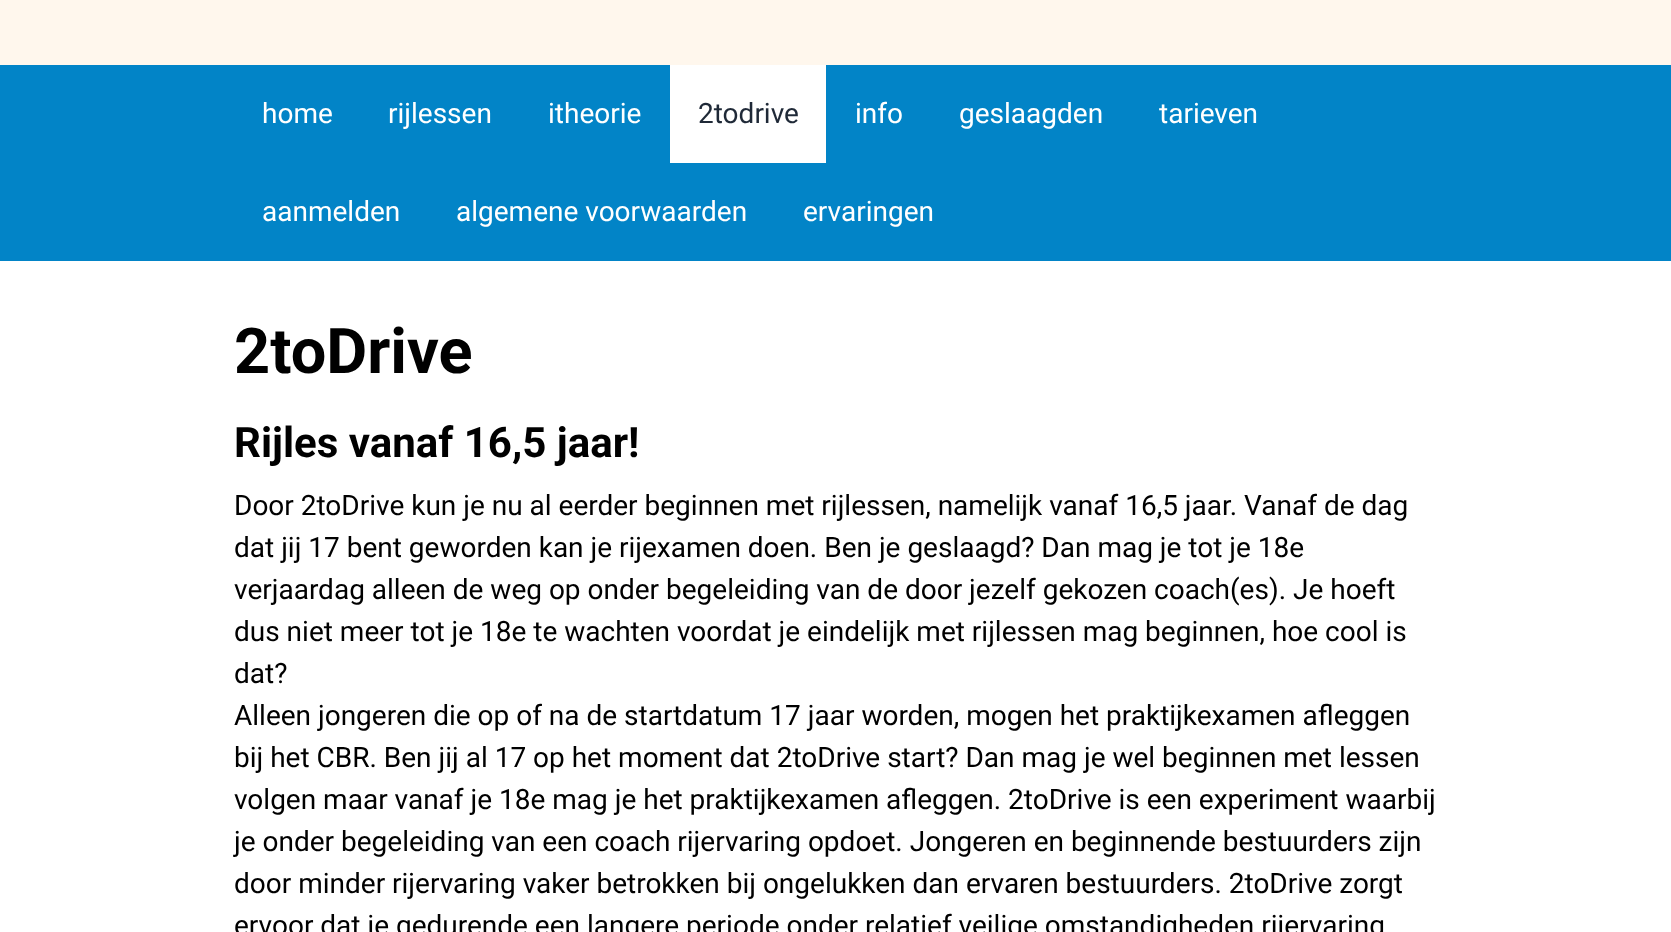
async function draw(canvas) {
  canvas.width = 1671;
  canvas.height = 932;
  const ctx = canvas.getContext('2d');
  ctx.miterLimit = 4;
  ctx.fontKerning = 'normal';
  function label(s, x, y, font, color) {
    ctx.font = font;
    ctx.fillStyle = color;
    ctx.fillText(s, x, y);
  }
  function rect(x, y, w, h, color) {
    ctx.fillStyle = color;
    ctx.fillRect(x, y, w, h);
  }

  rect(0, 0, 1671, 932, '#fff');
  rect(0, 0, 1671, 65, '#fff7ed');
  rect(0, 65, 1671, 196, '#0284c7');
  label('home', 262, 123, '28px Roboto', '#fff');
  label('rijlessen', 388, 123, '28px Roboto', '#fff');
  label('itheorie', 548, 123, '28px Roboto', '#fff');
  rect(670, 65, 156, 98, '#fff');
  label('2todrive', 698, 123, '28px Roboto', '#1f2937');
  label('info', 855, 123, '28px Roboto', '#fff');
  label('geslaagden', 959, 123, '28px Roboto', '#fff');
  label('tarieven', 1159, 123, '28px Roboto', '#fff');
  label('aanmelden', 262, 221, '28px Roboto', '#fff');
  label('algemene voorwaarden', 456, 221, '28px Roboto', '#fff');
  label('ervaringen', 803, 221, '28px Roboto', '#fff');
  label('2toDrive', 234, 373, 'bold 63px Roboto', '#000');
  label('Rijles vanaf 16,5 jaar!', 234, 457, 'bold 42px Roboto', '#000');
  label('Door 2toDrive kun je nu al eerder beginnen met rijlessen, namelijk vanaf 16,5 jaar. Vanaf de dag', 234, 515, '28px Roboto', '#000');
  label('dat jij 17 bent geworden kan je rijexamen doen. Ben je geslaagd? Dan mag je tot je 18e', 234, 557, '28px Roboto', '#000');
  label('verjaardag alleen de weg op onder begeleiding van de door jezelf gekozen coach(es). Je hoeft', 234, 599, '28px Roboto', '#000');
  label('dus niet meer tot je 18e te wachten voordat je eindelijk met rijlessen mag beginnen, hoe cool is', 234, 641, '28px Roboto', '#000');
  label('dat?', 234, 683, '28px Roboto', '#000');
  label('Alleen jongeren die op of na de startdatum 17 jaar worden, mogen het praktijkexamen afleggen', 234, 725, '28px Roboto', '#000');
  label('bij het CBR. Ben jij al 17 op het moment dat 2toDrive start? Dan mag je wel beginnen met lessen', 234, 767, '28px Roboto', '#000');
  label('volgen maar vanaf je 18e mag je het praktijkexamen afleggen. 2toDrive is een experiment waarbij', 234, 809, '28px Roboto', '#000');
  label('je onder begeleiding van een coach rijervaring opdoet. Jongeren en beginnende bestuurders zijn', 234, 851, '28px Roboto', '#000');
  label('door minder rijervaring vaker betrokken bij ongelukken dan ervaren bestuurders. 2toDrive zorgt', 234, 893, '28px Roboto', '#000');
  label('ervoor dat je gedurende een langere periode onder relatief veilige omstandigheden rijervaring', 234, 935, '28px Roboto', '#000');
}

draw(document.querySelector('canvas'));
